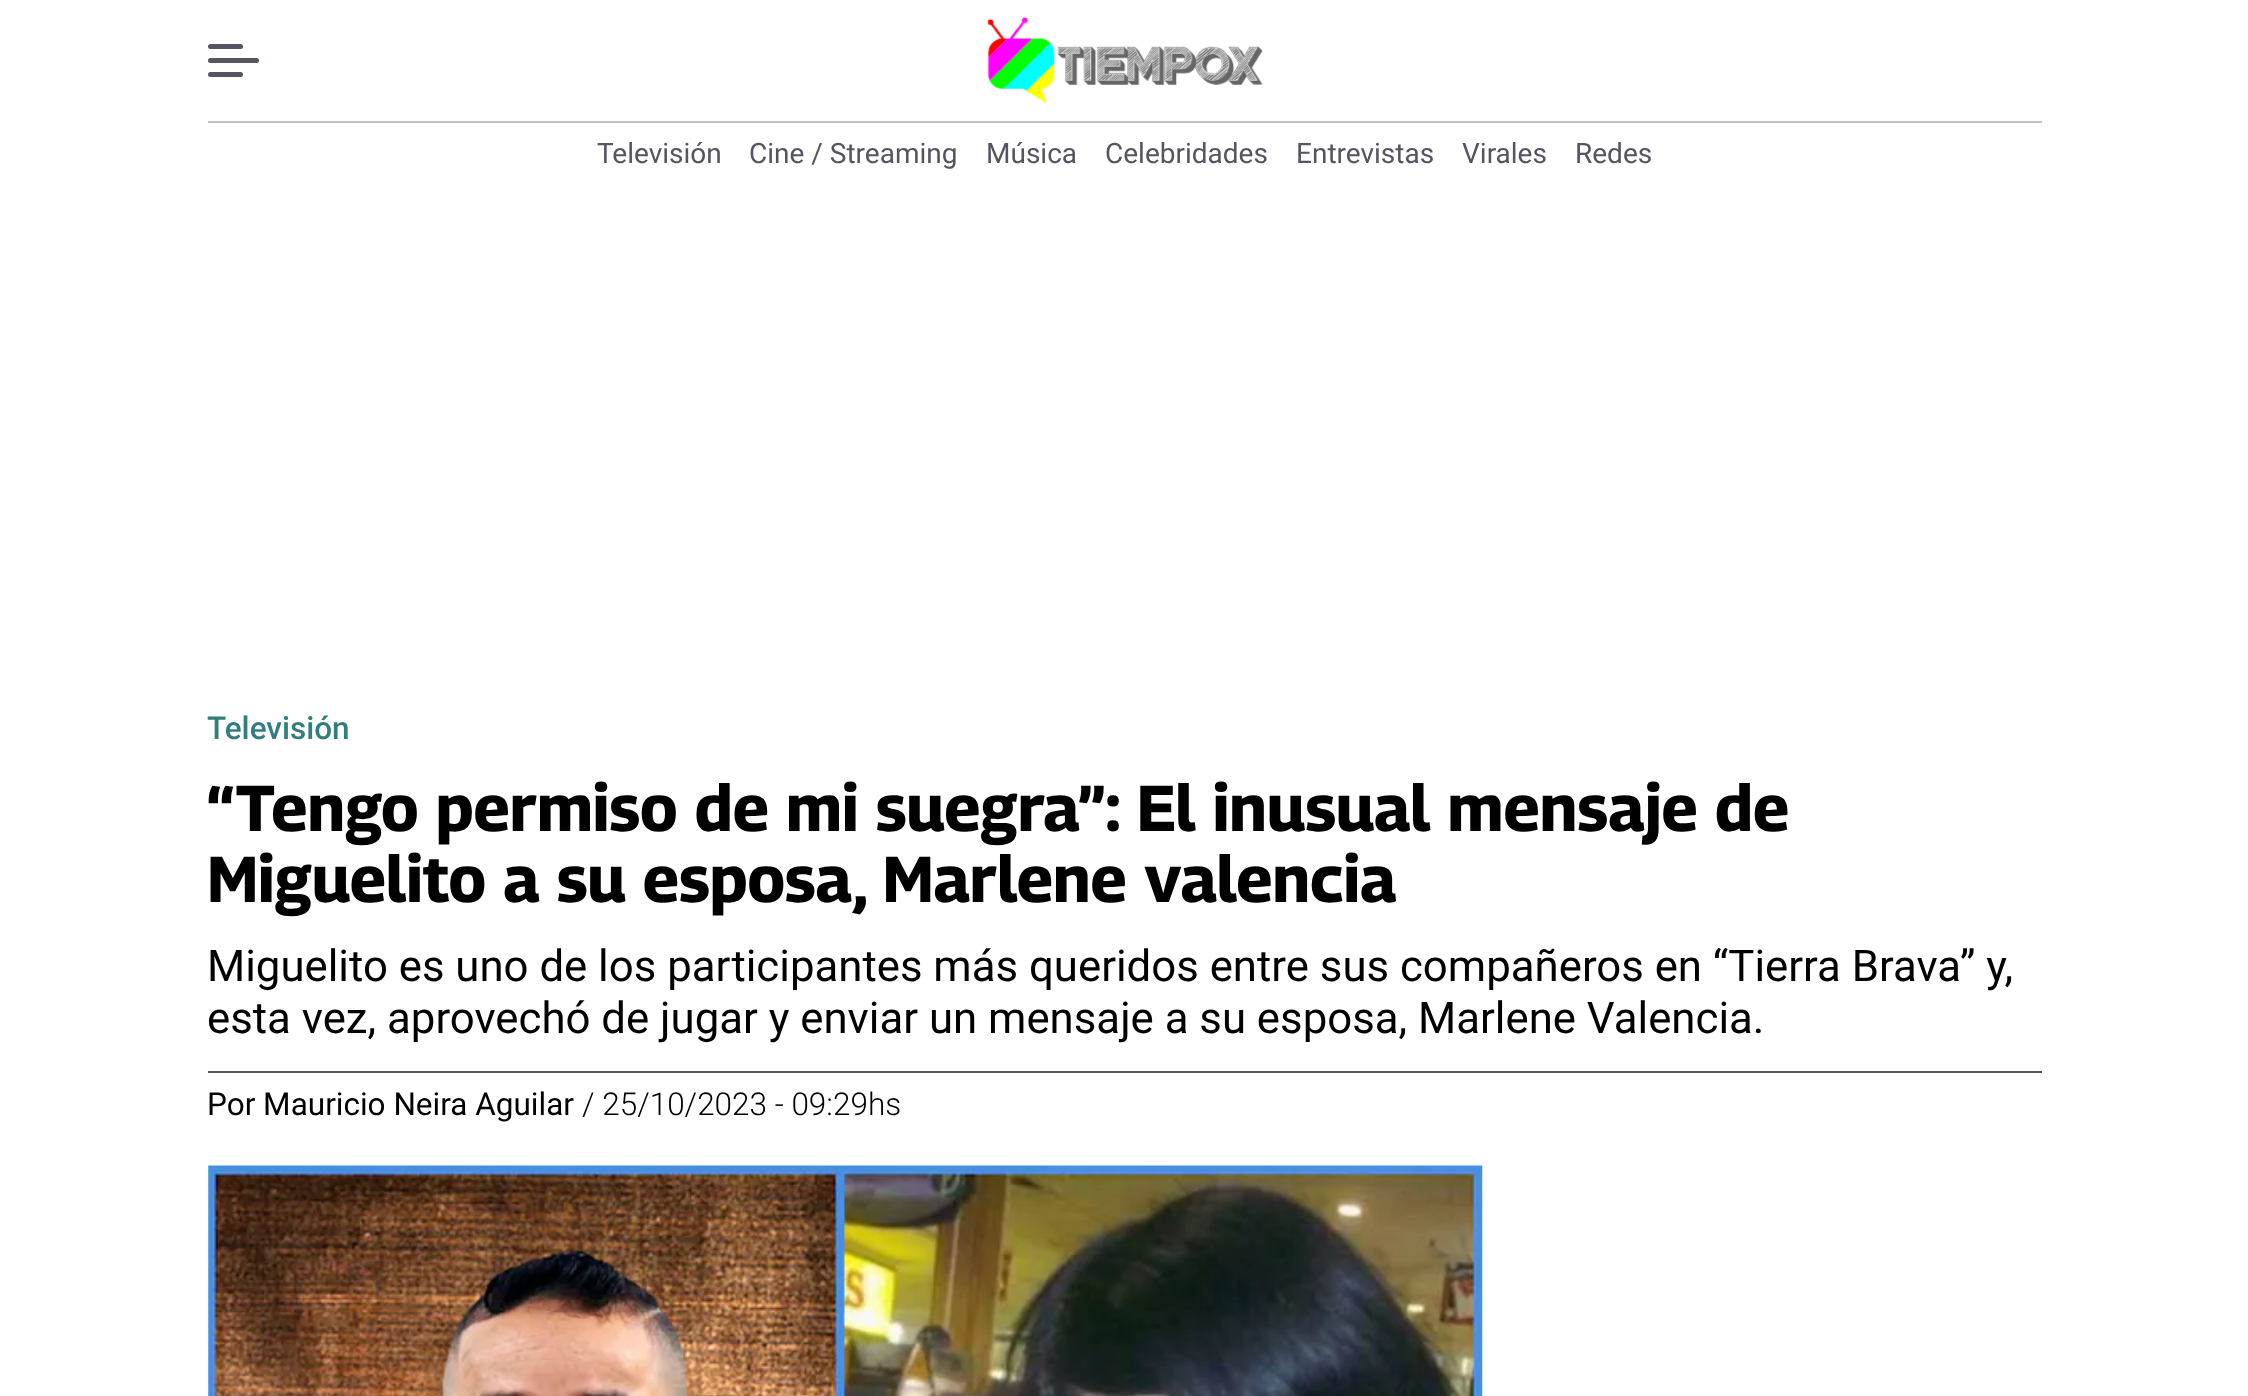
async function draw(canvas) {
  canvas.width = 2248;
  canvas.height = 1396;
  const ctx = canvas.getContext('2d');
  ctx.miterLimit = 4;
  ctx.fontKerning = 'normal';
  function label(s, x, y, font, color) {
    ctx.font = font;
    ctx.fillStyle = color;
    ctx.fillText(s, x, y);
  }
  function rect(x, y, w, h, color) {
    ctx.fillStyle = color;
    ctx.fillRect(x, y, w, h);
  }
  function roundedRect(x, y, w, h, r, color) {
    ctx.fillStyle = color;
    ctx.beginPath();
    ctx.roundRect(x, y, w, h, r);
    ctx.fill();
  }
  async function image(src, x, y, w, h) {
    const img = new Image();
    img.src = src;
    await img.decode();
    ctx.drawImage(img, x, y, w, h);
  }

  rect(0, 0, 2248, 1396, '#fff');
  rect(208, 121, 1834, 2, '#c2c2cf');
  roundedRect(208, 44, 35, 5, 2.5, '#545462');
  roundedRect(208, 58, 51, 5, 2.5, '#545462');
  roundedRect(208, 72, 35, 5, 2.5, '#545462');
  await image('assets/img1.png', 987, 17, 276, 87);
  label('Televisión', 597, 163, '28px Roboto', '#545462');
  label('Cine / Streaming', 749, 163, '28px Roboto', '#545462');
  label('Música', 986, 163, '28px Roboto', '#545462');
  label('Celebridades', 1105, 163, '28px Roboto', '#545462');
  label('Entrevistas', 1296, 163, '28px Roboto', '#545462');
  label('Virales', 1462, 163, '28px Roboto', '#545462');
  label('Redes', 1575, 163, '28px Roboto', '#545462');
  label('Televisión', 207, 739, '500 31.5px Roboto', '#327d7e');
  label('“Tengo permiso de mi suegra”: El inusual mensaje de', 207, 831, 'bold 64.75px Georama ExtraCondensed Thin', '#000');
  label('Miguelito a su esposa, Marlene valencia', 207, 902, 'bold 64.75px Georama ExtraCondensed Thin', '#000');
  label('Miguelito es uno de los participantes más queridos entre sus compañeros en “Tierra Brava” y,', 207, 981, '43.75px Roboto', '#000');
  label('esta vez, aprovechó de jugar y enviar un mensaje a su esposa, Marlene Valencia.', 207, 1033, '43.75px Roboto', '#000');
  rect(208, 1071, 1834, 2, '#545462');
  label('Por Mauricio Neira Aguilar', 207, 1115, '31.5px Roboto', '#000');
  label('/ 25/10/2023 - 09:29hs', 582, 1115, '300 31.5px Roboto', '#000');
  await image('assets/img2.png', 208, 1165, 1275, 231);
}

draw(document.querySelector('canvas'));
